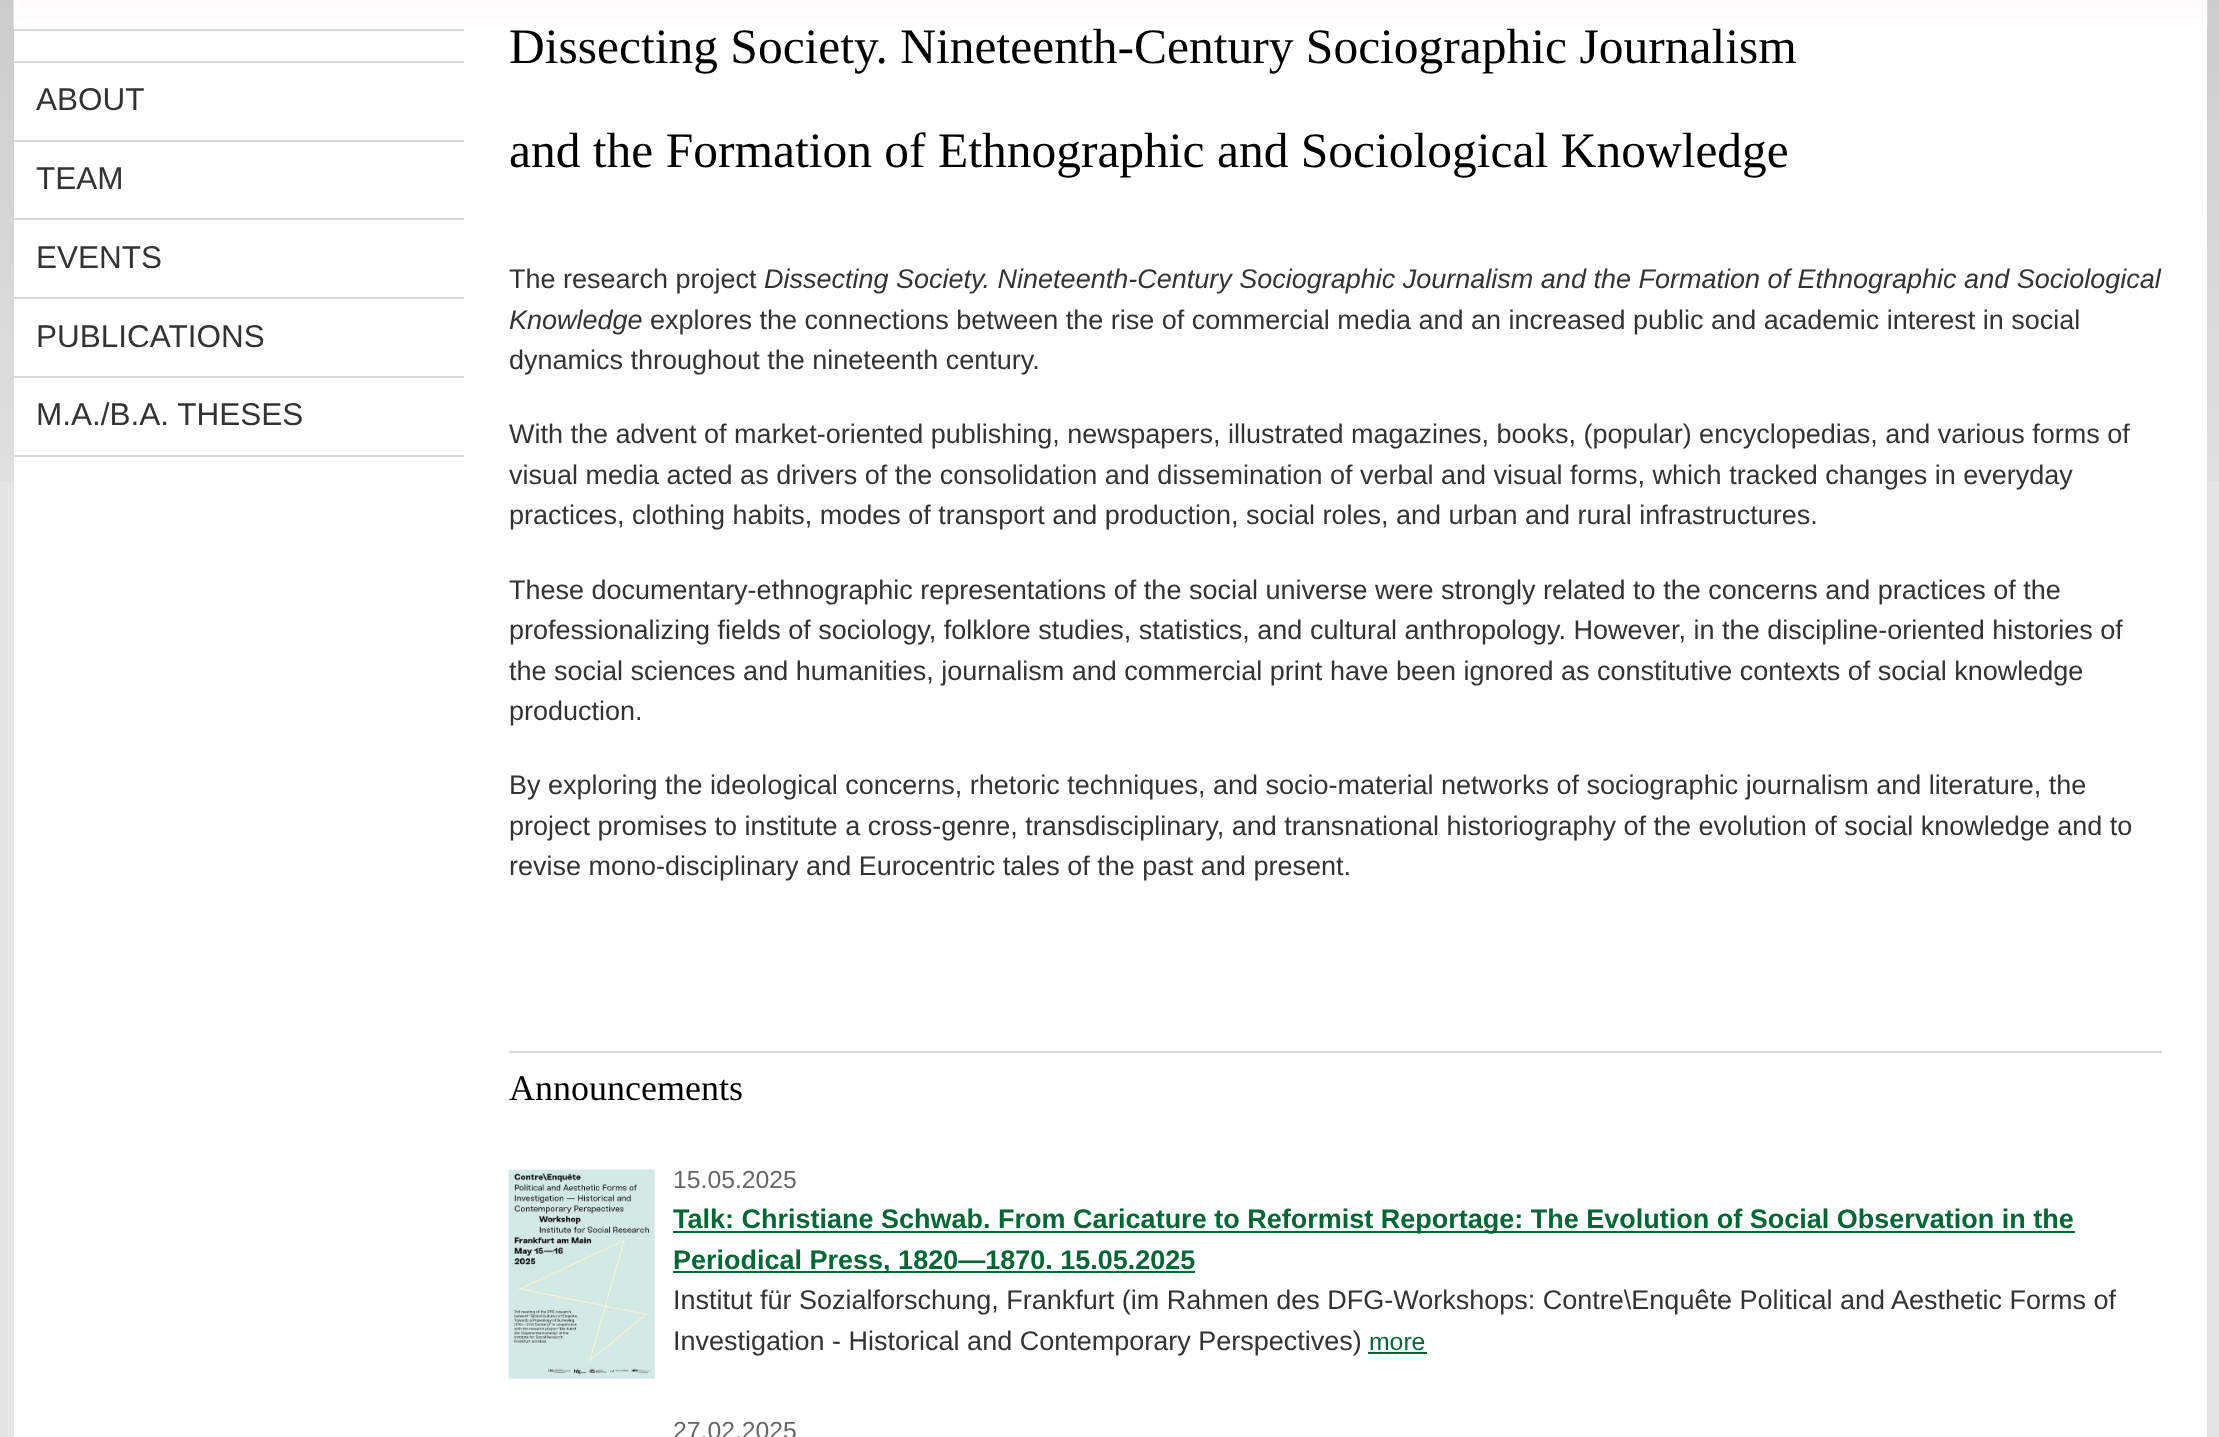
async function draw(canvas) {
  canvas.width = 2219;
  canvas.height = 1437;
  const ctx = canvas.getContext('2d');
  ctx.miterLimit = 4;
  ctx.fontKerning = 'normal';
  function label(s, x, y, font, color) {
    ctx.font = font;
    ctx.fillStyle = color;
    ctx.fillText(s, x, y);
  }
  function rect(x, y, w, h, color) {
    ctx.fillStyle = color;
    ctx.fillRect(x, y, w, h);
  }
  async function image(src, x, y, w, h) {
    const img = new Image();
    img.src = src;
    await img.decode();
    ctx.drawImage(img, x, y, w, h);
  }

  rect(0, 0, 2219, 1437, '#e5e5e5');
  await image('assets/img1.png', 0, 0, 2219, 482);
  rect(14, 26, 2193, 1411, '#fff');
  await image('assets/img2.png', 13, 0, 2195, 27);
  rect(14, 29, 450, 2, '#d8d8d8');
  rect(14, 61, 450, 2, '#d8d8d8');
  rect(14, 140, 450, 2, '#d8d8d8');
  label('ABOUT', 36, 110, '31.5px Liberation Sans', '#333');
  rect(14, 218, 450, 2, '#d8d8d8');
  label('TEAM', 36, 189, '31.5px Liberation Sans', '#333');
  rect(14, 297, 450, 2, '#d8d8d8');
  label('EVENTS', 36, 268, '31.5px Liberation Sans', '#333');
  rect(14, 376, 450, 2, '#d8d8d8');
  label('PUBLICATIONS', 36, 347, '31.5px Liberation Sans', '#333');
  rect(14, 455, 450, 2, '#d8d8d8');
  label('M.A./B.A. THESES', 36, 425, '31.5px Liberation Sans', '#333');
  label('Dissecting Society. Nineteenth-Century Sociographic Journalism', 509, 63, '49.5px Liberation Serif', '#000');
  label('and the Formation of Ethnographic and Sociological Knowledge', 509, 167, '49.5px Liberation Serif', '#000');
  label('The research project', 509, 288, '27px Liberation Sans', '#333');
  label('Dissecting Society. Nineteenth-Century Sociographic Journalism and the Formation of Ethnographic and Sociological', 764, 288, 'italic 27px Liberation Sans', '#333');
  label('Knowledge', 509, 329, 'italic 27px Liberation Sans', '#333');
  label('explores the connections between the rise of commercial media and an increased public and academic interest in social', 650, 329, '27px Liberation Sans', '#333');
  label('dynamics throughout the nineteenth century.', 509, 369, '27px Liberation Sans', '#333');
  label('With the advent of market-oriented publishing, newspapers, illustrated magazines, books, (popular) encyclopedias, and various forms of', 509, 443, '27px Liberation Sans', '#333');
  label('visual media acted as drivers of the consolidation and dissemination of verbal and visual forms, which tracked changes in everyday', 509, 484, '27px Liberation Sans', '#333');
  label('practices, clothing habits, modes of transport and production, social roles, and urban and rural infrastructures.', 509, 524, '27px Liberation Sans', '#333');
  label('These documentary-ethnographic representations of the social universe were strongly related to the concerns and practices of the', 509, 599, '27px Liberation Sans', '#333');
  label('professionalizing fields of sociology, folklore studies, statistics, and cultural anthropology. However, in the discipline-oriented histories of', 509, 639, '27px Liberation Sans', '#333');
  label('the social sciences and humanities, journalism and commercial print have been ignored as constitutive contexts of social knowledge', 509, 680, '27px Liberation Sans', '#333');
  label('production.', 509, 720, '27px Liberation Sans', '#333');
  label('By exploring the ideological concerns, rhetoric techniques, and socio-material networks of sociographic journalism and literature, the', 509, 794, '27px Liberation Sans', '#333');
  label('project promises to institute a cross-genre, transdisciplinary, and transnational historiography of the evolution of social knowledge and to', 509, 835, '27px Liberation Sans', '#333');
  label('revise mono-disciplinary and Eurocentric tales of the past and present.', 509, 875, '27px Liberation Sans', '#333');
  rect(509, 1051, 1653, 2, '#d8d8d8');
  label('Announcements', 509, 1100, '36px Liberation Serif', '#000');
  await image('assets/img3.png', 508, 1169, 147, 210);
  label('15.05.2025', 673, 1188, '24.75px Liberation Sans', '#666');
  rect(673, 1231, 1402, 2, '#063');
  label('Talk: Christiane Schwab. From Caricature to Reformist Reportage: The Evolution of Social Observation in the', 673, 1228, 'bold 27px Liberation Sans', '#063');
  rect(673, 1271, 522, 2, '#063');
  label('Periodical Press, 1820—1870. 15.05.2025', 673, 1269, 'bold 27px Liberation Sans', '#063');
  label('Institut für Sozialforschung, Frankfurt (im Rahmen des DFG-Workshops: Contre\\Enquête Political and Aesthetic Forms of', 673, 1309, '27px Liberation Sans', '#333');
  label('Investigation - Historical and Contemporary Perspectives)', 673, 1350, '27px Liberation Sans', '#333');
  label('more', 1369, 1350, '24.75px Liberation Sans', '#063');
  rect(1368, 1352, 59, 2, '#063');
  label('27.02.2025', 673, 1439, '24.75px Liberation Sans', '#666');
}

draw(document.querySelector('canvas'));
